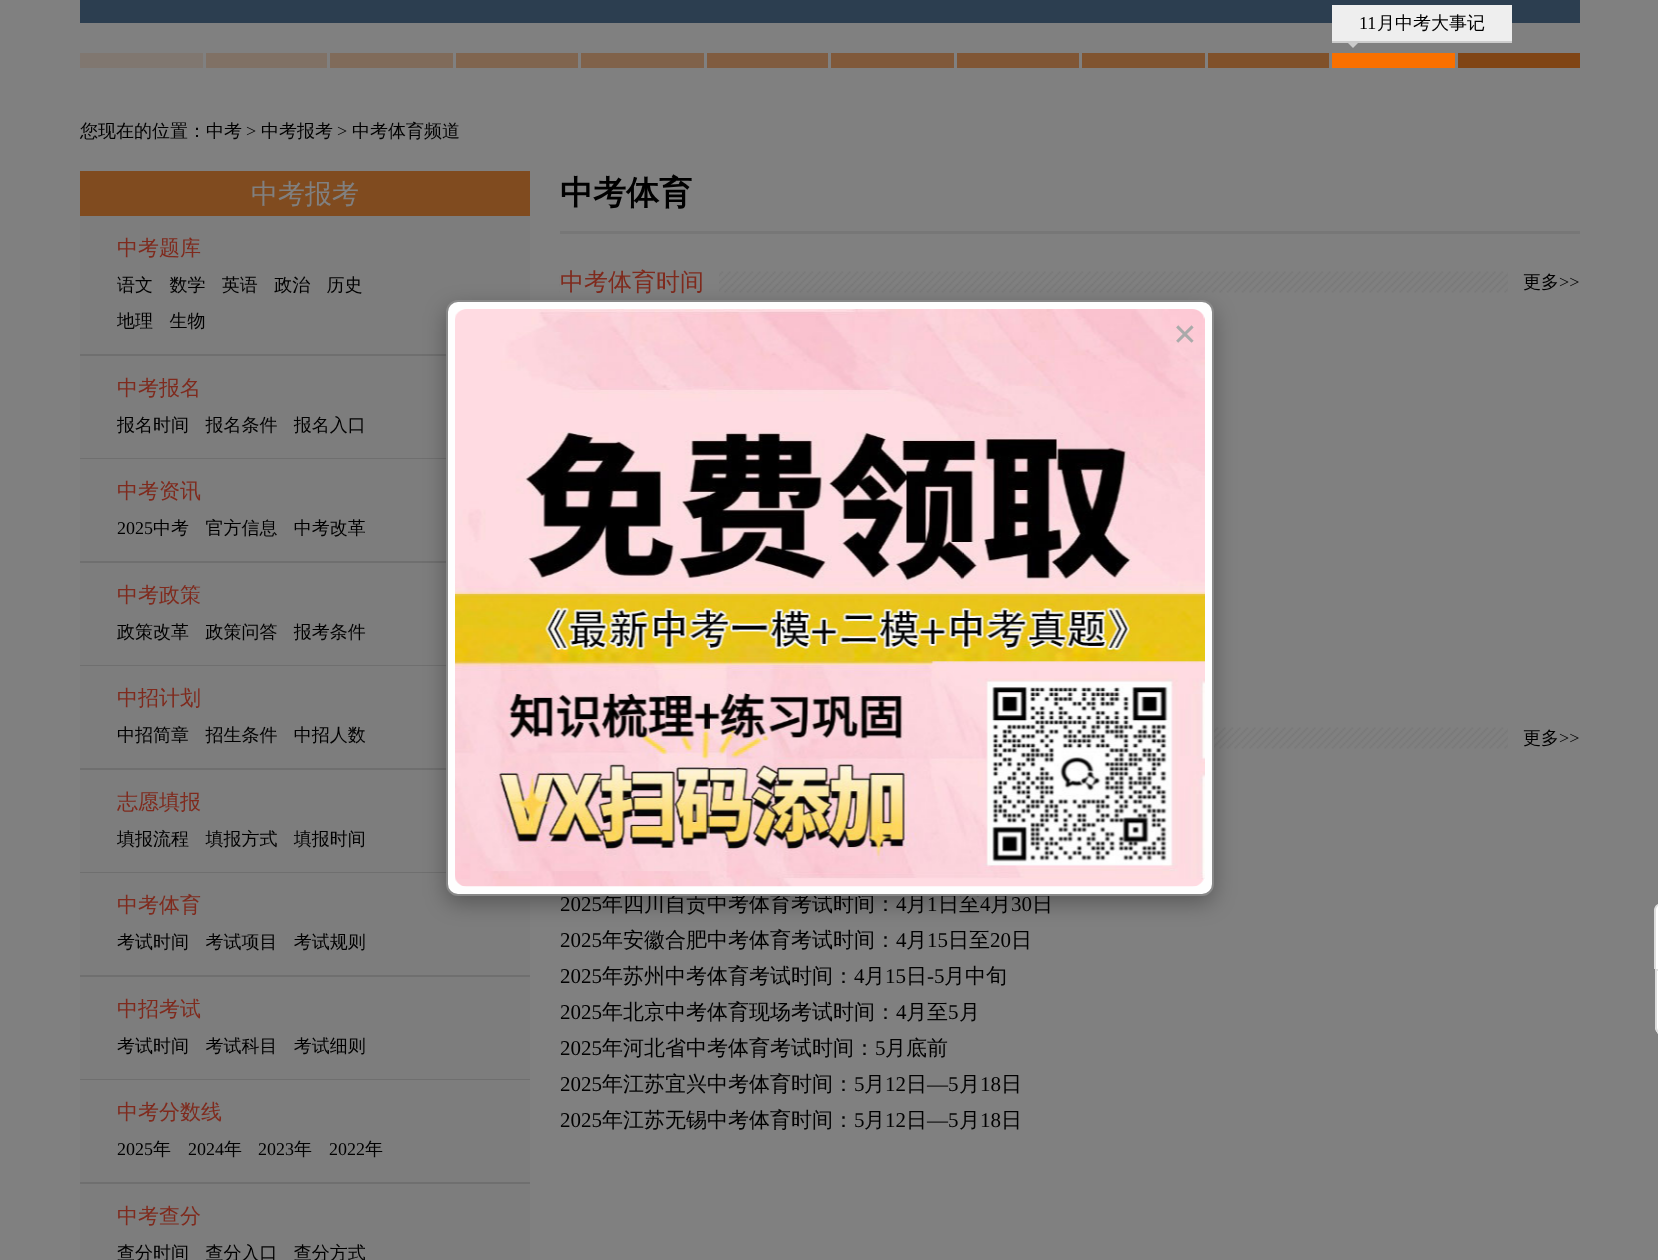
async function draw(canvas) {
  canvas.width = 1658;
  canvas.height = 1260;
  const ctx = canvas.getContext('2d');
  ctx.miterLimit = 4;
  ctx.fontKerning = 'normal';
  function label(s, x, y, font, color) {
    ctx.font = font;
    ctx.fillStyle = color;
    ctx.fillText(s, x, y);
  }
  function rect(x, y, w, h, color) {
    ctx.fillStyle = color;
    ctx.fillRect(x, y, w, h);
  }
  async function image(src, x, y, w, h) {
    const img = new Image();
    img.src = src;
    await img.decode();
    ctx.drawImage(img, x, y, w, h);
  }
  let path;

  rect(0, 0, 1658, 1260, '#808080');
  rect(80, 0, 1500, 23, '#2c3e50');
  rect(1332, 5, 180, 36, '#eee');
  rect(1332, 41, 180, 2, '#ccc');
  label('11', 1359, 29, '18px Liberation Serif', '#000');
  label('月中考大事记', 1377, 29, '500 18px WenQuanYi Zen Hei', '#000');
  ctx.fillStyle = '#ccc';
  path = new Path2D('M1347 42H1359L1353 48Z');
  ctx.fill(path);
  rect(1332, 53, 123, 15, '#f97000');
  rect(80, 53, 123, 15, '#807770');
  rect(206, 53, 121, 15, '#807165');
  rect(330, 53, 123, 15, '#806b5a');
  rect(456, 53, 122, 15, '#80654f');
  rect(581, 53, 123, 15, '#80624a');
  rect(707, 53, 121, 15, '#805c40');
  rect(831, 53, 123, 15, '#80593a');
  rect(957, 53, 122, 15, '#805635');
  rect(1082, 53, 123, 15, '#805430');
  rect(1208, 53, 121, 15, '#80512a');
  rect(1458, 53, 122, 15, '#804515');
  label('您现在的位置：中考', 80, 137, '500 18px WenQuanYi Zen Hei', '#000');
  label('>', 246, 137, '18px Liberation Serif', '#000');
  label('中考报考', 261, 137, '500 18px WenQuanYi Zen Hei', '#000');
  label('>', 337, 137, '18px Liberation Serif', '#000');
  label('中考体育频道', 352, 137, '500 18px WenQuanYi Zen Hei', '#000');
  rect(80, 171, 450, 45, '#804b1f');
  label('中考报考', 251, 203, '500 27px WenQuanYi Zen Hei', '#808080');
  rect(80, 216, 450, 138, '#7d7d7d');
  rect(80, 354, 366, 2, '#6f6f6f');
  label('中考题库', 117, 255, '500 21px WenQuanYi Zen Hei', '#7f2a1d');
  ctx.wordSpacing = '11px';
  label('语文 数学 英语 政治 历史', 117, 291, '500 18px WenQuanYi Zen Hei', '#000');
  label('地理 生物', 117, 327, '500 18px WenQuanYi Zen Hei', '#000');
  rect(80, 356, 366, 102, '#7d7d7d');
  rect(80, 458, 366, 1, '#6f6f6f');
  ctx.wordSpacing = '0px';
  label('中考报名', 117, 395, '500 21px WenQuanYi Zen Hei', '#7f2a1d');
  ctx.wordSpacing = '11px';
  label('报名时间 报名条件 报名入口', 117, 431, '500 18px WenQuanYi Zen Hei', '#000');
  rect(80, 459, 366, 102, '#7d7d7d');
  rect(80, 561, 366, 2, '#6f6f6f');
  ctx.wordSpacing = '0px';
  label('中考资讯', 117, 498, '500 21px WenQuanYi Zen Hei', '#7f2a1d');
  label('2025', 117, 534, '18px Liberation Serif', '#000');
  ctx.wordSpacing = '11px';
  label('中考 官方信息 中考改革', 153, 534, '500 18px WenQuanYi Zen Hei', '#000');
  rect(80, 563, 366, 102, '#7d7d7d');
  rect(80, 665, 366, 1, '#6f6f6f');
  ctx.wordSpacing = '0px';
  label('中考政策', 117, 602, '500 21px WenQuanYi Zen Hei', '#7f2a1d');
  ctx.wordSpacing = '11px';
  label('政策改革 政策问答 报考条件', 117, 638, '500 18px WenQuanYi Zen Hei', '#000');
  rect(80, 666, 366, 102, '#7d7d7d');
  rect(80, 768, 366, 2, '#6f6f6f');
  ctx.wordSpacing = '0px';
  label('中招计划', 117, 705, '500 21px WenQuanYi Zen Hei', '#7f2a1d');
  ctx.wordSpacing = '11px';
  label('中招简章 招生条件 中招人数', 117, 741, '500 18px WenQuanYi Zen Hei', '#000');
  rect(80, 770, 366, 102, '#7d7d7d');
  rect(80, 872, 366, 1, '#6f6f6f');
  ctx.wordSpacing = '0px';
  label('志愿填报', 117, 809, '500 21px WenQuanYi Zen Hei', '#7f2a1d');
  ctx.wordSpacing = '11px';
  label('填报流程 填报方式 填报时间', 117, 845, '500 18px WenQuanYi Zen Hei', '#000');
  rect(80, 873, 450, 102, '#7d7d7d');
  rect(80, 975, 450, 2, '#6f6f6f');
  ctx.wordSpacing = '0px';
  label('中考体育', 117, 912, '500 21px WenQuanYi Zen Hei', '#7f2a1d');
  ctx.wordSpacing = '11px';
  label('考试时间 考试项目 考试规则', 117, 948, '500 18px WenQuanYi Zen Hei', '#000');
  rect(80, 977, 450, 102, '#7d7d7d');
  rect(80, 1079, 450, 1, '#6f6f6f');
  ctx.wordSpacing = '0px';
  label('中招考试', 117, 1016, '500 21px WenQuanYi Zen Hei', '#7f2a1d');
  ctx.wordSpacing = '11px';
  label('考试时间 考试科目 考试细则', 117, 1052, '500 18px WenQuanYi Zen Hei', '#000');
  rect(80, 1080, 450, 102, '#7d7d7d');
  rect(80, 1182, 450, 2, '#6f6f6f');
  ctx.wordSpacing = '0px';
  label('中考分数线', 117, 1119, '500 21px WenQuanYi Zen Hei', '#7f2a1d');
  label('2025', 117, 1155, '18px Liberation Serif', '#000');
  label('年', 153, 1155, '500 18px WenQuanYi Zen Hei', '#000');
  label('2024', 188, 1155, '18px Liberation Serif', '#000');
  label('年', 224, 1155, '500 18px WenQuanYi Zen Hei', '#000');
  label('2023', 258, 1155, '18px Liberation Serif', '#000');
  label('年', 294, 1155, '500 18px WenQuanYi Zen Hei', '#000');
  label('2022', 329, 1155, '18px Liberation Serif', '#000');
  label('年', 365, 1155, '500 18px WenQuanYi Zen Hei', '#000');
  rect(80, 1184, 450, 76, '#7d7d7d');
  label('中考查分', 117, 1223, '500 21px WenQuanYi Zen Hei', '#7f2a1d');
  ctx.wordSpacing = '11px';
  label('查分时间 查分入口 查分方式', 117, 1259, '500 18px WenQuanYi Zen Hei', '#000');
  rect(560, 231, 1020, 3, '#777');
  ctx.wordSpacing = '0px';
  label('中考体育', 560, 204, 'bold 33px WenQuanYi Zen Hei', '#000');
  await image('assets/img1.png', 559, 271, 949, 22);
  rect(560, 271, 159, 22, '#808080');
  label('中考体育时间', 560, 290, '500 24px WenQuanYi Zen Hei', '#7f2a1d');
  label('更多', 1523, 288, '500 18px WenQuanYi Zen Hei', '#000');
  label('>>', 1559, 288, '18px Liberation Serif', '#000');
  await image('assets/img2.png', 1214, 727, 294, 22);
  label('更多', 1523, 744, '500 18px WenQuanYi Zen Hei', '#000');
  label('>>', 1559, 744, '18px Liberation Serif', '#000');
  label('2025', 560, 911, '21px Liberation Serif', '#000');
  label('年四川自贡中考体育考试时间：', 602, 911, '500 21px WenQuanYi Zen Hei', '#000');
  label('4', 896, 911, '21px Liberation Serif', '#000');
  label('月', 906, 911, '500 21px WenQuanYi Zen Hei', '#000');
  label('1', 927, 911, '21px Liberation Serif', '#000');
  label('日至', 938, 911, '500 21px WenQuanYi Zen Hei', '#000');
  label('4', 980, 911, '21px Liberation Serif', '#000');
  label('月', 990, 911, '500 21px WenQuanYi Zen Hei', '#000');
  label('30', 1011, 911, '21px Liberation Serif', '#000');
  label('日', 1032, 911, '500 21px WenQuanYi Zen Hei', '#000');
  label('2025', 560, 947, '21px Liberation Serif', '#000');
  label('年安徽合肥中考体育考试时间：', 602, 947, '500 21px WenQuanYi Zen Hei', '#000');
  label('4', 896, 947, '21px Liberation Serif', '#000');
  label('月', 906, 947, '500 21px WenQuanYi Zen Hei', '#000');
  label('15', 927, 947, '21px Liberation Serif', '#000');
  label('日至', 948, 947, '500 21px WenQuanYi Zen Hei', '#000');
  label('20', 990, 947, '21px Liberation Serif', '#000');
  label('日', 1011, 947, '500 21px WenQuanYi Zen Hei', '#000');
  label('2025', 560, 983, '21px Liberation Serif', '#000');
  label('年苏州中考体育考试时间：', 602, 983, '500 21px WenQuanYi Zen Hei', '#000');
  label('4', 854, 983, '21px Liberation Serif', '#000');
  label('月', 864, 983, '500 21px WenQuanYi Zen Hei', '#000');
  label('15', 885, 983, '21px Liberation Serif', '#000');
  label('日', 906, 983, '500 21px WenQuanYi Zen Hei', '#000');
  label('-5', 927, 983, '21px Liberation Serif', '#000');
  label('月中旬', 944, 983, '500 21px WenQuanYi Zen Hei', '#000');
  label('2025', 560, 1019, '21px Liberation Serif', '#000');
  label('年北京中考体育现场考试时间：', 602, 1019, '500 21px WenQuanYi Zen Hei', '#000');
  label('4', 896, 1019, '21px Liberation Serif', '#000');
  label('月至', 906, 1019, '500 21px WenQuanYi Zen Hei', '#000');
  label('5', 948, 1019, '21px Liberation Serif', '#000');
  label('月', 959, 1019, '500 21px WenQuanYi Zen Hei', '#000');
  label('2025', 560, 1055, '21px Liberation Serif', '#000');
  label('年河北省中考体育考试时间：', 602, 1055, '500 21px WenQuanYi Zen Hei', '#000');
  label('5', 875, 1055, '21px Liberation Serif', '#000');
  label('月底前', 885, 1055, '500 21px WenQuanYi Zen Hei', '#000');
  label('2025', 560, 1091, '21px Liberation Serif', '#000');
  label('年江苏宜兴中考体育时间：', 602, 1091, '500 21px WenQuanYi Zen Hei', '#000');
  label('5', 854, 1091, '21px Liberation Serif', '#000');
  label('月', 864, 1091, '500 21px WenQuanYi Zen Hei', '#000');
  label('12', 885, 1091, '21px Liberation Serif', '#000');
  label('日', 906, 1091, '500 21px WenQuanYi Zen Hei', '#000');
  label('—5', 927, 1091, '21px Liberation Serif', '#000');
  label('月', 959, 1091, '500 21px WenQuanYi Zen Hei', '#000');
  label('18', 980, 1091, '21px Liberation Serif', '#000');
  label('日', 1001, 1091, '500 21px WenQuanYi Zen Hei', '#000');
  label('2025', 560, 1127, '21px Liberation Serif', '#000');
  label('年江苏无锡中考体育时间：', 602, 1127, '500 21px WenQuanYi Zen Hei', '#000');
  label('5', 854, 1127, '21px Liberation Serif', '#000');
  label('月', 864, 1127, '500 21px WenQuanYi Zen Hei', '#000');
  label('12', 885, 1127, '21px Liberation Serif', '#000');
  label('日', 906, 1127, '500 21px WenQuanYi Zen Hei', '#000');
  label('—5', 927, 1127, '21px Liberation Serif', '#000');
  label('月', 959, 1127, '500 21px WenQuanYi Zen Hei', '#000');
  label('18', 980, 1127, '21px Liberation Serif', '#000');
  label('日', 1001, 1127, '500 21px WenQuanYi Zen Hei', '#000');
  ctx.fillStyle = '#0000004d';
  ctx.filter = 'blur(11px)';
  ctx.beginPath();
  ctx.roundRect(446, 308, 768, 595, 12);
  ctx.fill();
  ctx.filter = 'none';
  ctx.fillStyle = '#fefefe';
  ctx.beginPath();
  ctx.roundRect(447, 301, 766, 594, 11);
  ctx.fill();
  ctx.strokeStyle = '#888';
  ctx.lineWidth = 2;
  ctx.stroke();
  await image('assets/img3.png', 455, 309, 750, 578);
  label('×', 1173, 348, 'bold 42px Liberation Serif', '#aaa');
  ctx.fillStyle = '#fff';
  path = new Path2D('M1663 903H1658C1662.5 903 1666 906.5 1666 911V969H1655V911C1655 906.5 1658.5 903 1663 903Z');
  ctx.fill(path);
  await image('assets/img4.png', 1655, 904, 3, 6);
  ctx.fillStyle = '#dedede';
  path = new Path2D('M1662 903H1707C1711 903 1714 906 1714 910V969H1654V910C1654 906 1658 903 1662 903ZM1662 904H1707C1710 904 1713 907 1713 910V969H1656V910C1656 907 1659 904 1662 904Z');
  ctx.fill(path, 'evenodd');
  ctx.fillStyle = '#fff';
  path = new Path2D('M1655 969H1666V1027C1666 1031.5 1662.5 1035 1658 1035H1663C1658.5 1035 1655 1031.5 1655 1027Z');
  ctx.fill(path);
  await image('assets/img5.png', 1657, 1032, 1, 2);
  path = new Path2D('M1656 970H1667V1027C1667 1031 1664 1034 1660 1034H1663C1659 1034 1656 1031 1656 1027Z');
  ctx.strokeStyle = '#dedede';
  ctx.stroke(path);
}

draw(document.querySelector('canvas'));
